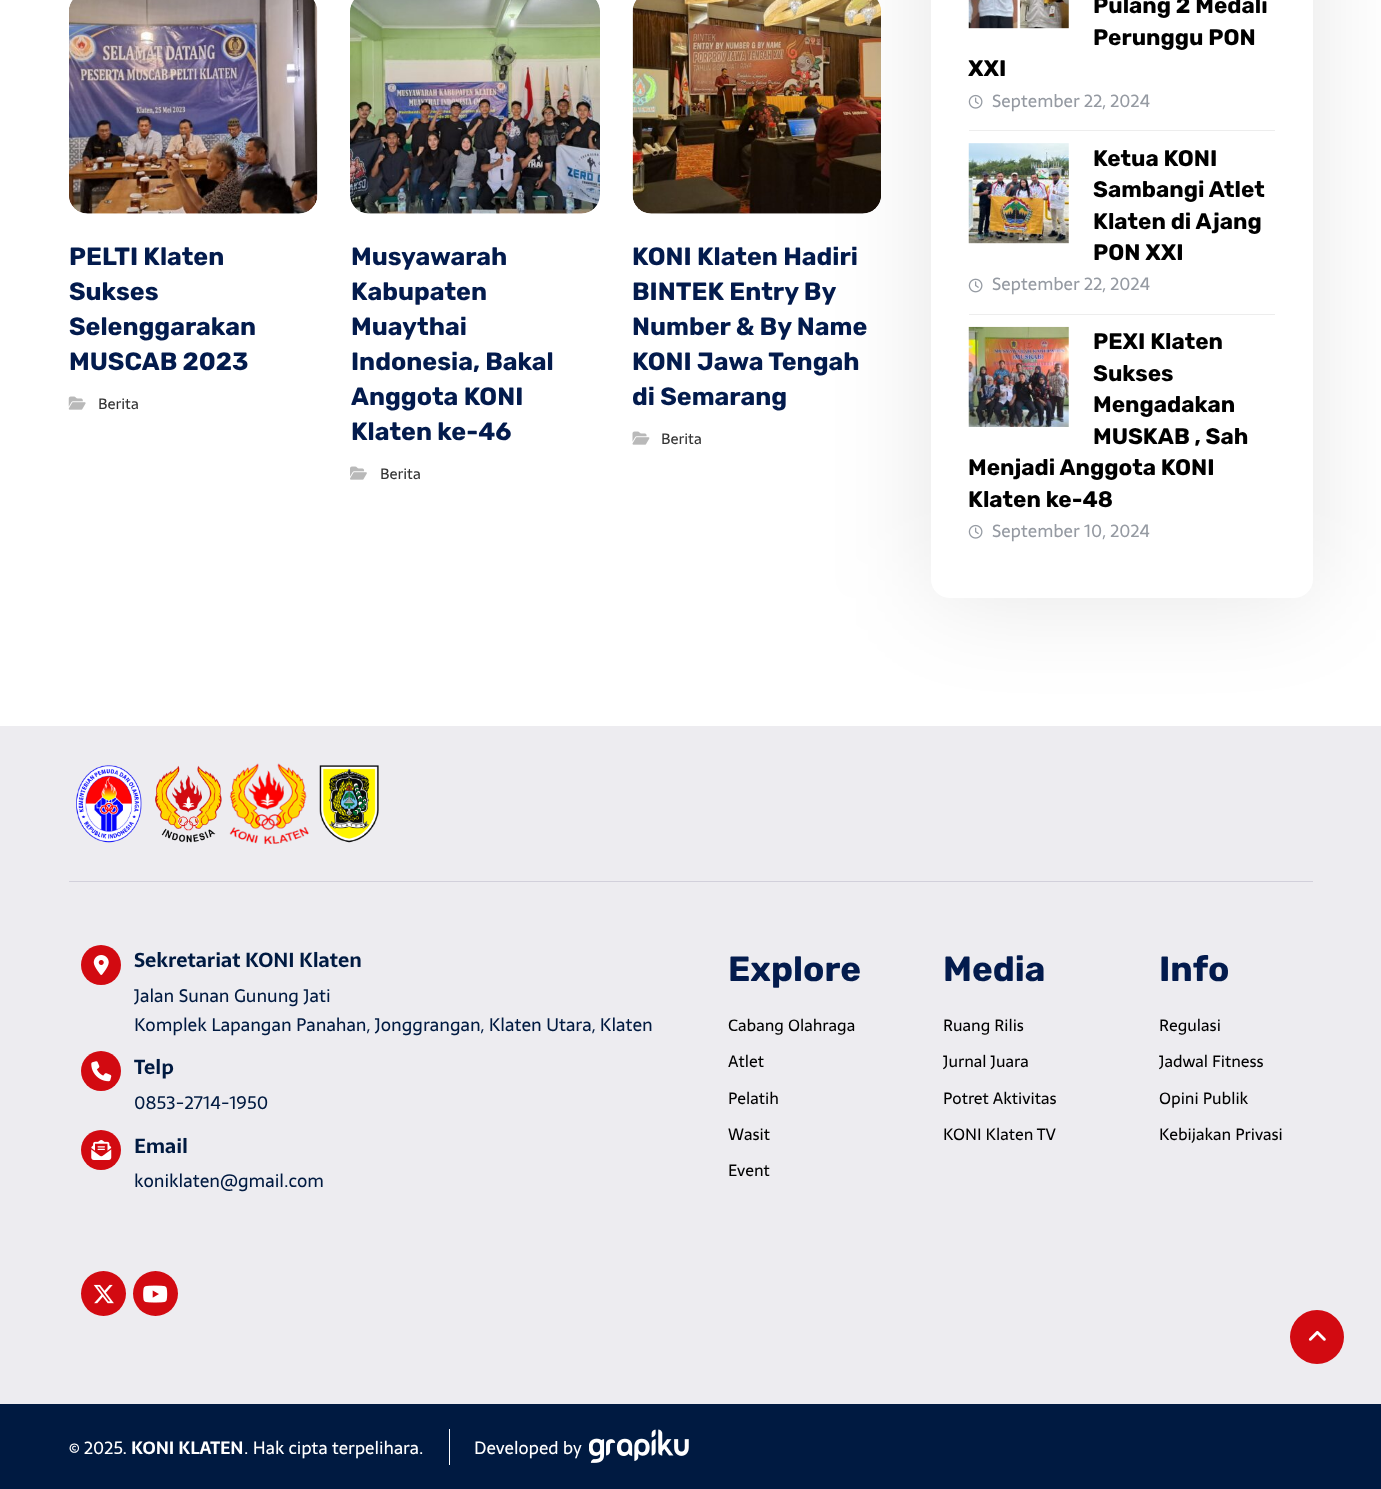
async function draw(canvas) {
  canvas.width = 1381;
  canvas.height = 1489;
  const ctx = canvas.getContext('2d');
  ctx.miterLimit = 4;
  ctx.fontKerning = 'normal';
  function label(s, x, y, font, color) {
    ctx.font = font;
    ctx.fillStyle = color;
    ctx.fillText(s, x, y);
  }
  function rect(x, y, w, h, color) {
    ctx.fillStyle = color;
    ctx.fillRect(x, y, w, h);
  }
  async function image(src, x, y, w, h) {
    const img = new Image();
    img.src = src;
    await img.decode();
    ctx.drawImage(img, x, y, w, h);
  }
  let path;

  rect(0, 0, 1381, 1489, '#fff');
  await image('assets/img1.png', 69, 0, 249, 214);
  label('PELTI Klaten', 69, 265, 'bold 25px Rubik', '#031b4d');
  label('Sukses', 69, 300, 'bold 25px Rubik', '#031b4d');
  label('Selenggarakan', 69, 335, 'bold 25px Rubik', '#031b4d');
  label('MUSCAB 2023', 69, 370, 'bold 25px Rubik', '#031b4d');
  await image('assets/img2.png', 68, 396, 18, 14);
  label('Berita', 98, 409, '15px Sarala', '#333');
  await image('assets/img3.png', 350, 0, 250, 214);
  label('Musyawarah', 351, 265, 'bold 25px Rubik', '#031b4d');
  label('Kabupaten', 351, 300, 'bold 25px Rubik', '#031b4d');
  label('Muaythai', 351, 335, 'bold 25px Rubik', '#031b4d');
  label('Indonesia, Bakal', 351, 370, 'bold 25px Rubik', '#031b4d');
  label('Anggota KONI', 351, 405, 'bold 25px Rubik', '#031b4d');
  label('Klaten ke-46', 351, 440, 'bold 25px Rubik', '#031b4d');
  await image('assets/img4.png', 350, 466, 17, 14);
  label('Berita', 380, 479, '15px Sarala', '#333');
  await image('assets/img5.png', 632, 0, 249, 214);
  label('KONI Klaten Hadiri', 632, 265, 'bold 25px Rubik', '#031b4d');
  label('BINTEK Entry By', 632, 300, 'bold 25px Rubik', '#031b4d');
  label('Number & By Name', 632, 335, 'bold 25px Rubik', '#031b4d');
  label('KONI Jawa Tengah', 632, 370, 'bold 25px Rubik', '#031b4d');
  label('di Semarang', 632, 405, 'bold 25px Rubik', '#031b4d');
  await image('assets/img6.png', 632, 431, 18, 14);
  label('Berita', 661, 444, '15px Sarala', '#333');
  ctx.save();
  path = new Path2D('M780 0H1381V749H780ZM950-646H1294C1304.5-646 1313-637.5 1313-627V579C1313 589.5 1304.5 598 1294 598H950C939.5 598 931 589.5 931 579V-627C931-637.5 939.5-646 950-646Z');
  ctx.clip(path, 'evenodd');
  ctx.fillStyle = '#0000001a';
  ctx.filter = 'blur(50px)';
  ctx.beginPath();
  ctx.roundRect(931, -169, 382, 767, 19);
  ctx.fill();
  ctx.filter = 'none';
  ctx.restore();
  rect(969, 130, 306, 1, '#ededed');
  label('Pulang 2 Medali', 1093, 13, 'bold 22.5px Rubik', '#000');
  label('Perunggu PON', 1093, 45, 'bold 22.5px Rubik', '#000');
  label('XXI', 968, 76, 'bold 22.5px Rubik', '#000');
  await image('assets/img7.png', 968, 94, 15, 15);
  label('September 22, 2024', 992, 107, '17.5px Sarala', '#959aa2');
  await image('assets/img8.png', 968, 0, 101, 29);
  rect(969, 314, 306, 1, '#ededed');
  await image('assets/img9.png', 968, 143, 101, 101);
  label('Ketua KONI', 1093, 166, 'bold 22.5px Rubik', '#000');
  label('Sambangi Atlet', 1093, 197, 'bold 22.5px Rubik', '#000');
  label('Klaten di Ajang', 1093, 229, 'bold 22.5px Rubik', '#000');
  label('PON XXI', 1093, 260, 'bold 22.5px Rubik', '#000');
  await image('assets/img10.png', 968, 278, 15, 15);
  label('September 22, 2024', 992, 290, '17.5px Sarala', '#959aa2');
  await image('assets/img11.png', 968, 326, 101, 101);
  label('PEXI Klaten', 1093, 349, 'bold 22.5px Rubik', '#000');
  label('Sukses', 1093, 381, 'bold 22.5px Rubik', '#000');
  label('Mengadakan', 1093, 412, 'bold 22.5px Rubik', '#000');
  label('MUSKAB , Sah', 1093, 444, 'bold 22.5px Rubik', '#000');
  label('Menjadi Anggota KONI', 968, 475, 'bold 22.5px Rubik', '#000');
  label('Klaten ke-48', 968, 507, 'bold 22.5px Rubik', '#000');
  await image('assets/img12.png', 968, 524, 15, 15);
  label('September 10, 2024', 992, 537, '17.5px Sarala', '#959aa2');
  rect(0, 1404, 1381, 85, '#001a41');
  rect(0, 726, 1381, 678, '#edecf0');
  rect(69, 881, 1244, 1, '#d2d0db');
  await image('assets/img13.png', 76, 765, 66, 78);
  await image('assets/img14.png', 155, 765, 67, 78);
  await image('assets/img15.png', 229, 763, 80, 81);
  await image('assets/img16.png', 319, 765, 60, 78);
  ctx.fillStyle = '#d20a11';
  ctx.beginPath();
  ctx.arc(101, 965, 20, 0, 2 * Math.PI);
  ctx.fill();
  await image('assets/img17.png', 93, 955, 16, 20);
  label('Sekretariat KONI Klaten', 134, 967, 'bold 20px Sarala', '#001a41');
  label('Jalan Sunan Gunung Jati', 134, 1002, '18px Sarala', '#001a41');
  label('Komplek Lapangan Panahan, Jonggrangan, Klaten Utara, Klaten', 134, 1031, '18px Sarala', '#001a41');
  ctx.fillStyle = '#d20a11';
  ctx.beginPath();
  ctx.arc(101, 1071, 20, 0, 2 * Math.PI);
  ctx.fill();
  await image('assets/img18.png', 91, 1061, 21, 21);
  label('Telp', 134, 1074, 'bold 20px Sarala', '#001a41');
  label('0853-2714-1950', 134, 1109, '18px Sarala', '#001a41');
  ctx.fillStyle = '#d20a11';
  ctx.beginPath();
  ctx.arc(101, 1150, 20, 0, 2 * Math.PI);
  ctx.fill();
  await image('assets/img19.png', 91, 1140, 21, 20);
  label('Email', 134, 1153, 'bold 20px Sarala', '#001a41');
  label('koniklaten@gmail.com', 134, 1187, '18px Sarala', '#001a41');
  ctx.fillStyle = '#d20a11';
  ctx.beginPath();
  ctx.arc(103.5, 1293.5, 22.5, 0, 2 * Math.PI);
  ctx.fill();
  await image('assets/img20.png', 93, 1284, 21, 20);
  ctx.beginPath();
  ctx.arc(155.5, 1293.5, 22.5, 0, 2 * Math.PI);
  ctx.fill();
  await image('assets/img21.png', 143, 1285, 25, 18);
  label('Explore', 728, 981, 'bold 35px Rubik', '#031b4d');
  label('Cabang Olahraga', 728, 1031, '16.25px Sarala', '#000');
  label('Atlet', 728, 1067, '16.25px Sarala', '#000');
  label('Pelatih', 728, 1104, '16.25px Sarala', '#000');
  label('Wasit', 728, 1140, '16.25px Sarala', '#000');
  label('Event', 728, 1176, '16.25px Sarala', '#000');
  label('Media', 943, 981, 'bold 35px Rubik', '#031b4d');
  label('Ruang Rilis', 943, 1031, '16.25px Sarala', '#000');
  label('Jurnal Juara', 943, 1067, '16.25px Sarala', '#000');
  label('Potret Aktivitas', 943, 1104, '16.25px Sarala', '#000');
  label('KONI Klaten TV', 943, 1140, '16.25px Sarala', '#000');
  label('Info', 1159, 981, 'bold 35px Rubik', '#031b4d');
  label('Regulasi', 1159, 1031, '16.25px Sarala', '#000');
  label('Jadwal Fitness', 1159, 1067, '16.25px Sarala', '#000');
  label('Opini Publik', 1159, 1104, '16.25px Sarala', '#000');
  label('Kebijakan Privasi', 1159, 1140, '16.25px Sarala', '#000');
  label('© 2025.', 69, 1454, '17.5px Sarala', '#fff');
  label('KONI KLATEN', 131, 1454, 'bold 17.5px Sarala', '#fff');
  label('. Hak cipta terpelihara.', 244, 1454, '17.5px Sarala', '#fff');
  rect(449, 1429, 1, 36, '#fff');
  label('Developed by', 474, 1454, '17.5px Sarala', '#fff');
  await image('assets/img22.png', 589, 1429, 100, 34);
  ctx.fillStyle = '#d20a11';
  ctx.beginPath();
  ctx.arc(1317, 1337, 27, 0, 2 * Math.PI);
  ctx.fill();
  await image('assets/img23.png', 1308, 1330, 18, 11);
}

draw(document.querySelector('canvas'));
